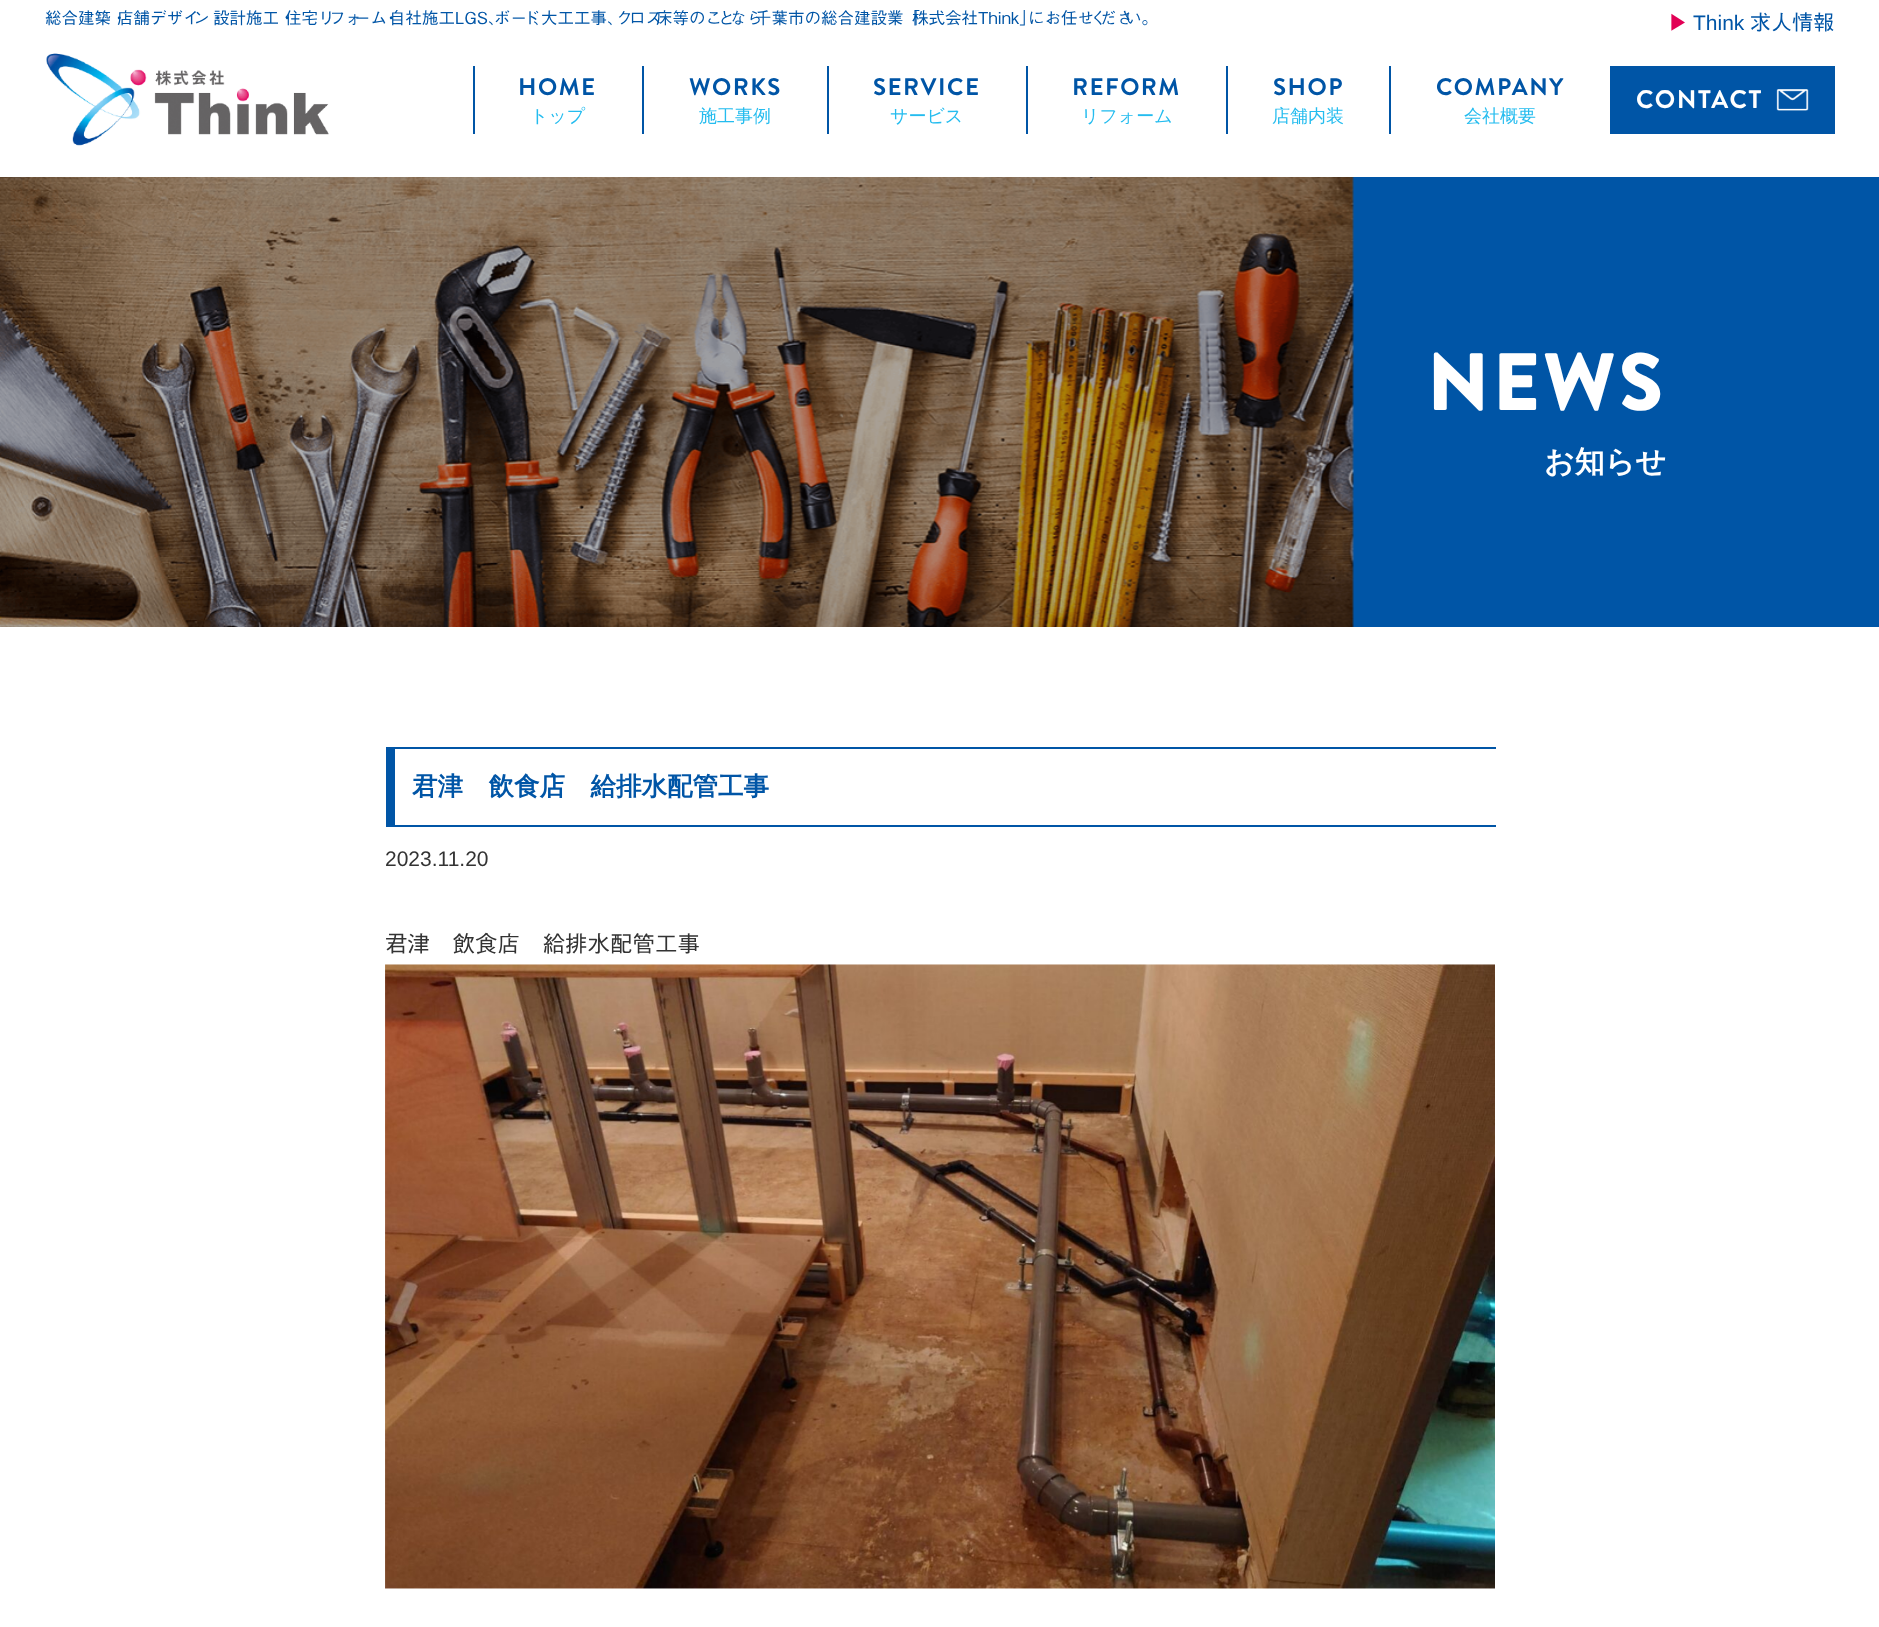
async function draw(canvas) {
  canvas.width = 1879;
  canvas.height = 1627;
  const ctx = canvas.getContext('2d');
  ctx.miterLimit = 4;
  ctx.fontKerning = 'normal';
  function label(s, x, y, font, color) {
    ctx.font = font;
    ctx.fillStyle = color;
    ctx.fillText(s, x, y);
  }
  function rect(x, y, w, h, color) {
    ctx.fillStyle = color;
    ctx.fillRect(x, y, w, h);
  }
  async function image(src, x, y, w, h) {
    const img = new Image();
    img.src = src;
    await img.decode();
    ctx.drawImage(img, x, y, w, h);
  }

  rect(0, 0, 1879, 1627, '#fff');
  label('総合建築・', 45, 24, '16.5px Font', '#0055a6');
  label('店舗デザイ', 117, 24, '16.5px Font', '#0055a6');
  label('ン・', 193, 24, '16.5px Font', '#0055a6');
  label('設計施工・', 213, 24, '16.5px Font', '#0055a6');
  label('住宅リ', 285, 24, '16.5px Font', '#0055a6');
  label('フォ', 329, 24, '16.5px Font', '#0055a6');
  label('ーム', 354, 24, '16.5px Font', '#0055a6');
  label('・', 383, 24, '16.5px Font', '#0055a6');
  label('自社施工LGS、', 389, 24, '16.5px Font', '#0055a6');
  label('ボー', 494, 24, '16.5px Font', '#0055a6');
  label('ド', 523, 24, '16.5px Font', '#0055a6');
  label('、', 533, 24, '16.5px Font', '#0055a6');
  label('大工工事、', 541, 24, '16.5px Font', '#0055a6');
  label('ク', 616, 24, '16.5px Font', '#0055a6');
  label('ロス', 629, 24, '16.5px Font', '#0055a6');
  label('床等のこ', 656, 24, '16.5px Font', '#0055a6');
  label('と', 718, 24, '16.5px Font', '#0055a6');
  label('なら', 730, 24, '16.5px Font', '#0055a6');
  label('千葉市の総合建設業「', 755, 24, '16.5px Font', '#0055a6');
  label('株式会社Think」', 912, 24, '16.5px Font', '#0055a6');
  label('にお任せ', 1028, 24, '16.5px Font', '#0055a6');
  label('く', 1090, 24, '16.5px Font', '#0055a6');
  label('ださ', 1100, 24, '16.5px Font', '#0055a6');
  label('い。', 1125, 24, '16.5px Font', '#0055a6');
  label('▶', 1668, 30, '500 21px WenQuanYi Zen Hei', '#e20055');
  label('Think', 1693, 30, '21px Liberation Sans', '#0055a6');
  label('求人情報', 1750, 30, '21px Font', '#0055a6');
  await image('assets/img1.png', 46, 53, 283, 93);
  rect(473, 66, 2, 68, '#0055a6');
  ctx.letterSpacing = '1.5px';
  label('HOME', 518, 95, 'bold 24px Brandon Grotesque', '#0055a6');
  ctx.letterSpacing = '0px';
  label('トップ', 530, 122, '500 18px WenQuanYi Zen Hei', '#24bcef');
  rect(642, 66, 2, 68, '#0055a6');
  ctx.letterSpacing = '1.5px';
  label('WORKS', 689, 95, 'bold 24px Brandon Grotesque', '#0055a6');
  ctx.letterSpacing = '0px';
  label('施工事例', 699, 122, '500 18px WenQuanYi Zen Hei', '#24bcef');
  rect(827, 66, 2, 68, '#0055a6');
  ctx.letterSpacing = '1.5px';
  label('SERVICE', 873, 95, 'bold 24px Brandon Grotesque', '#0055a6');
  ctx.letterSpacing = '0px';
  label('サービス', 890, 122, '500 18px WenQuanYi Zen Hei', '#24bcef');
  rect(1026, 66, 2, 68, '#0055a6');
  ctx.letterSpacing = '1.5px';
  label('REFORM', 1072, 95, 'bold 24px Brandon Grotesque', '#0055a6');
  ctx.letterSpacing = '0px';
  label('リフォーム', 1081, 122, '500 18px WenQuanYi Zen Hei', '#24bcef');
  rect(1226, 66, 2, 68, '#0055a6');
  ctx.letterSpacing = '1.5px';
  label('SHOP', 1273, 95, 'bold 24px Brandon Grotesque', '#0055a6');
  ctx.letterSpacing = '0px';
  label('店舗内装', 1272, 122, '500 18px WenQuanYi Zen Hei', '#24bcef');
  rect(1389, 66, 2, 68, '#0055a6');
  ctx.letterSpacing = '1.5px';
  label('COMPANY', 1436, 95, 'bold 24px Brandon Grotesque', '#0055a6');
  ctx.letterSpacing = '0px';
  label('会社概要', 1464, 122, '500 18px WenQuanYi Zen Hei', '#24bcef');
  rect(1610, 66, 225, 68, '#0055a6');
  ctx.letterSpacing = '1.5px';
  label('CONTACT', 1636, 108, 'bold 25.5px Brandon Grotesque', '#fff');
  await image('assets/img2.png', 1776, 89, 33, 22);
  rect(1352, 177, 527, 450, '#0055a6');
  await image('assets/img3.png', 0, 177, 1354, 450);
  ctx.letterSpacing = '3px';
  label('NEWS', 1427, 410, '900 81px Brandon Grotesque', '#fff');
  ctx.letterSpacing = '0px';
  label('お知らせ', 1544, 472, 'bold 30px WenQuanYi Zen Hei', '#fff');
  rect(395, 747, 1101, 2, '#0055a6');
  rect(395, 825, 1101, 2, '#0055a6');
  rect(386, 747, 9, 80, '#0055a6');
  label('君津　飲食店　給排水配管工事', 412, 795, 'bold 25.5px WenQuanYi Zen Hei', '#0055a6');
  label('2023.11.20', 385, 866, '21px Liberation Sans', '#333');
  label('君津　飲食店　給排水配管工事', 385, 952, '22.5px Font', '#333');
  await image('assets/img4.png', 385, 964, 1110, 625);
}

draw(document.querySelector('canvas'));
